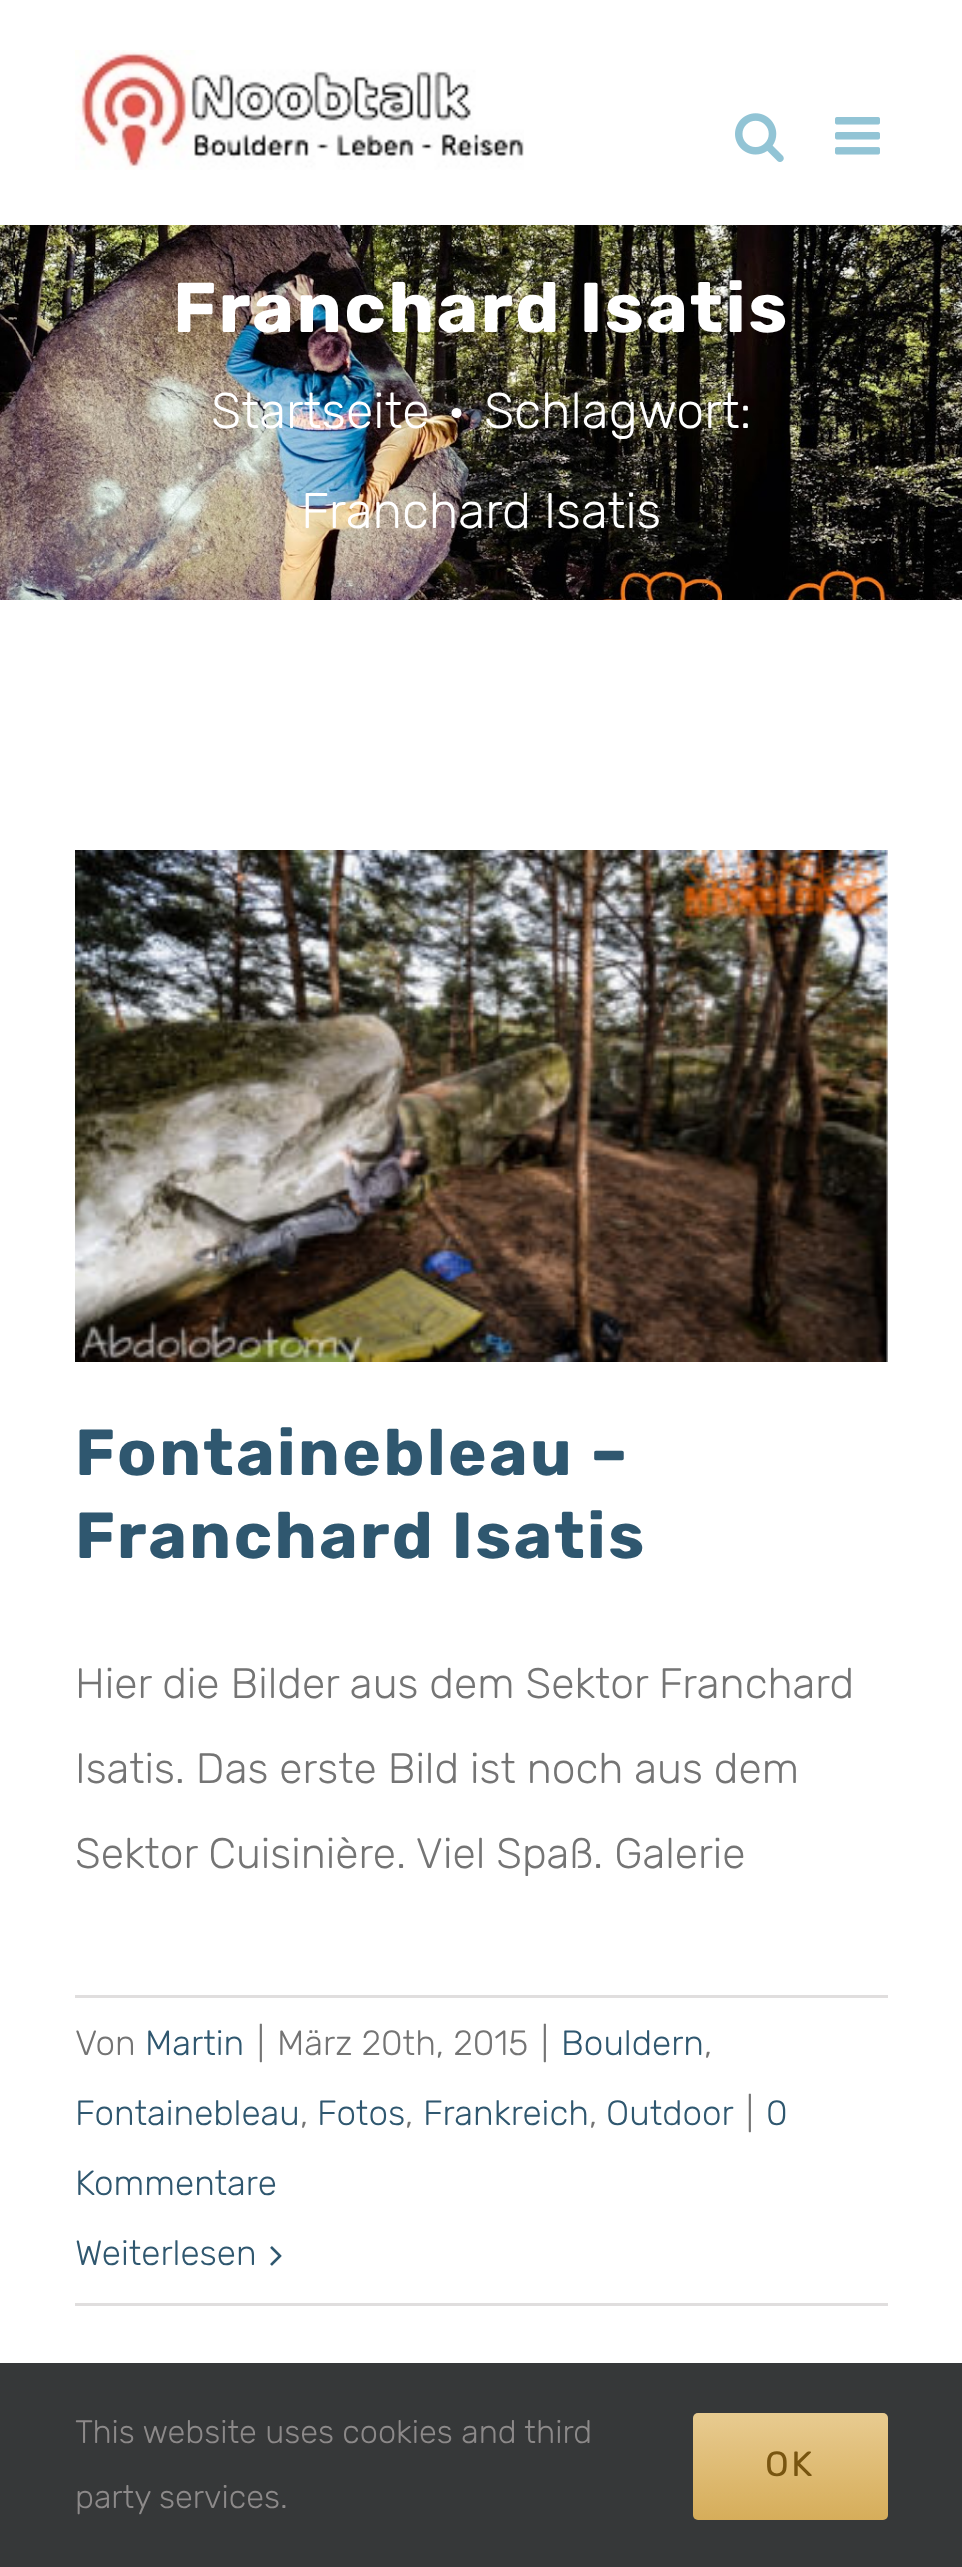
async function draw(canvas) {
  canvas.width = 962;
  canvas.height = 2567;
  const ctx = canvas.getContext('2d');
  ctx.miterLimit = 4;
  ctx.fontKerning = 'normal';
  function label(s, x, y, font, color) {
    ctx.font = font;
    ctx.fillStyle = color;
    ctx.fillText(s, x, y);
  }
  function rect(x, y, w, h, color) {
    ctx.fillStyle = color;
    ctx.fillRect(x, y, w, h);
  }
  async function image(src, x, y, w, h) {
    const img = new Image();
    img.src = src;
    await img.decode();
    ctx.drawImage(img, x, y, w, h);
  }
  let gradient;

  rect(0, 0, 962, 2567, '#fff');
  await image('assets/img1.png', 75, 50, 449, 120);
  await image('assets/img2.png', 735, 113, 49, 49);
  await image('assets/img3.png', 835, 117, 45, 38);
  await image('assets/img4.png', 0, 225, 962, 375);
  ctx.letterSpacing = '2.5px';
  label('Franchard Isatis', 173, 332, 'bold 70.5px Rubik', '#fff');
  ctx.letterSpacing = '0px';
  label('Startseite', 211, 428, '300 50px Rubik', '#fff');
  label('•', 447, 428, '300 50px Rubik', '#fff');
  label('Schlagwort:', 484, 428, '300 50px Rubik', '#fff');
  label('Franchard Isatis', 301, 528, '300 50px Rubik', '#fff');
  await image('assets/img5.png', 75, 850, 813, 512);
  ctx.letterSpacing = '2.5px';
  label('Fontainebleau –', 75, 1475, 'bold 65px Rubik', '#2f576f');
  label('Franchard Isatis', 75, 1558, 'bold 65px Rubik', '#2f576f');
  ctx.letterSpacing = '0px';
  label('Hier die Bilder aus dem Sektor Franchard', 75, 1698, '300 42.5px Rubik', '#747474');
  label('Isatis. Das erste Bild ist noch aus dem', 75, 1783, '300 42.5px Rubik', '#747474');
  label('Sektor Cuisinière. Viel Spaß. Galerie', 75, 1868, '300 42.5px Rubik', '#747474');
  rect(75, 1995, 813, 3, '#e0dede');
  rect(75, 2303, 813, 3, '#e0dede');
  label('Von', 75, 2055, '300 35px Rubik', '#747474');
  label('Martin', 145, 2055, '300 35px Rubik', '#2f576f');
  label('|', 257, 2055, '300 35px Rubik', '#747474');
  label('März 20th, 2015', 277, 2055, '300 35px Rubik', '#747474');
  label('|', 541, 2055, '300 35px Rubik', '#747474');
  label('Bouldern', 561, 2055, '300 35px Rubik', '#2f576f');
  label(',', 704, 2055, '300 35px Rubik', '#747474');
  label('Fontainebleau', 75, 2125, '300 35px Rubik', '#2f576f');
  label(',', 300, 2125, '300 35px Rubik', '#747474');
  label('Fotos', 317, 2125, '300 35px Rubik', '#2f576f');
  label(',', 405, 2125, '300 35px Rubik', '#747474');
  label('Frankreich', 423, 2125, '300 35px Rubik', '#2f576f');
  label(',', 589, 2125, '300 35px Rubik', '#747474');
  label('Outdoor', 606, 2125, '300 35px Rubik', '#2f576f');
  label('|', 746, 2125, '300 35px Rubik', '#747474');
  label('0', 766, 2125, '300 35px Rubik', '#2f576f');
  label('Kommentare', 75, 2195, '300 35px Rubik', '#2f576f');
  label('Weiterlesen', 75, 2265, '300 35px Rubik', '#2f576f');
  await image('assets/img6.png', 270, 2246, 12, 20);
  rect(0, 2363, 962, 204, '#363839');
  label('This website uses cookies and third', 75, 2443, '300 32.5px Rubik', '#8c8989');
  label('party services.', 75, 2508, '300 32.5px Rubik', '#8c8989');
  gradient = ctx.createLinearGradient(790, 2413, 790, 2520);
  gradient.addColorStop(0, '#e8cb90');
  gradient.addColorStop(1, '#d6ad5a');
  ctx.fillStyle = gradient;
  ctx.beginPath();
  ctx.roundRect(693, 2413, 195, 107, 5);
  ctx.fill();
  ctx.letterSpacing = '2.5px';
  label('OK', 765, 2476, '35px Rubik', '#785510');
}

draw(document.querySelector('canvas'));
